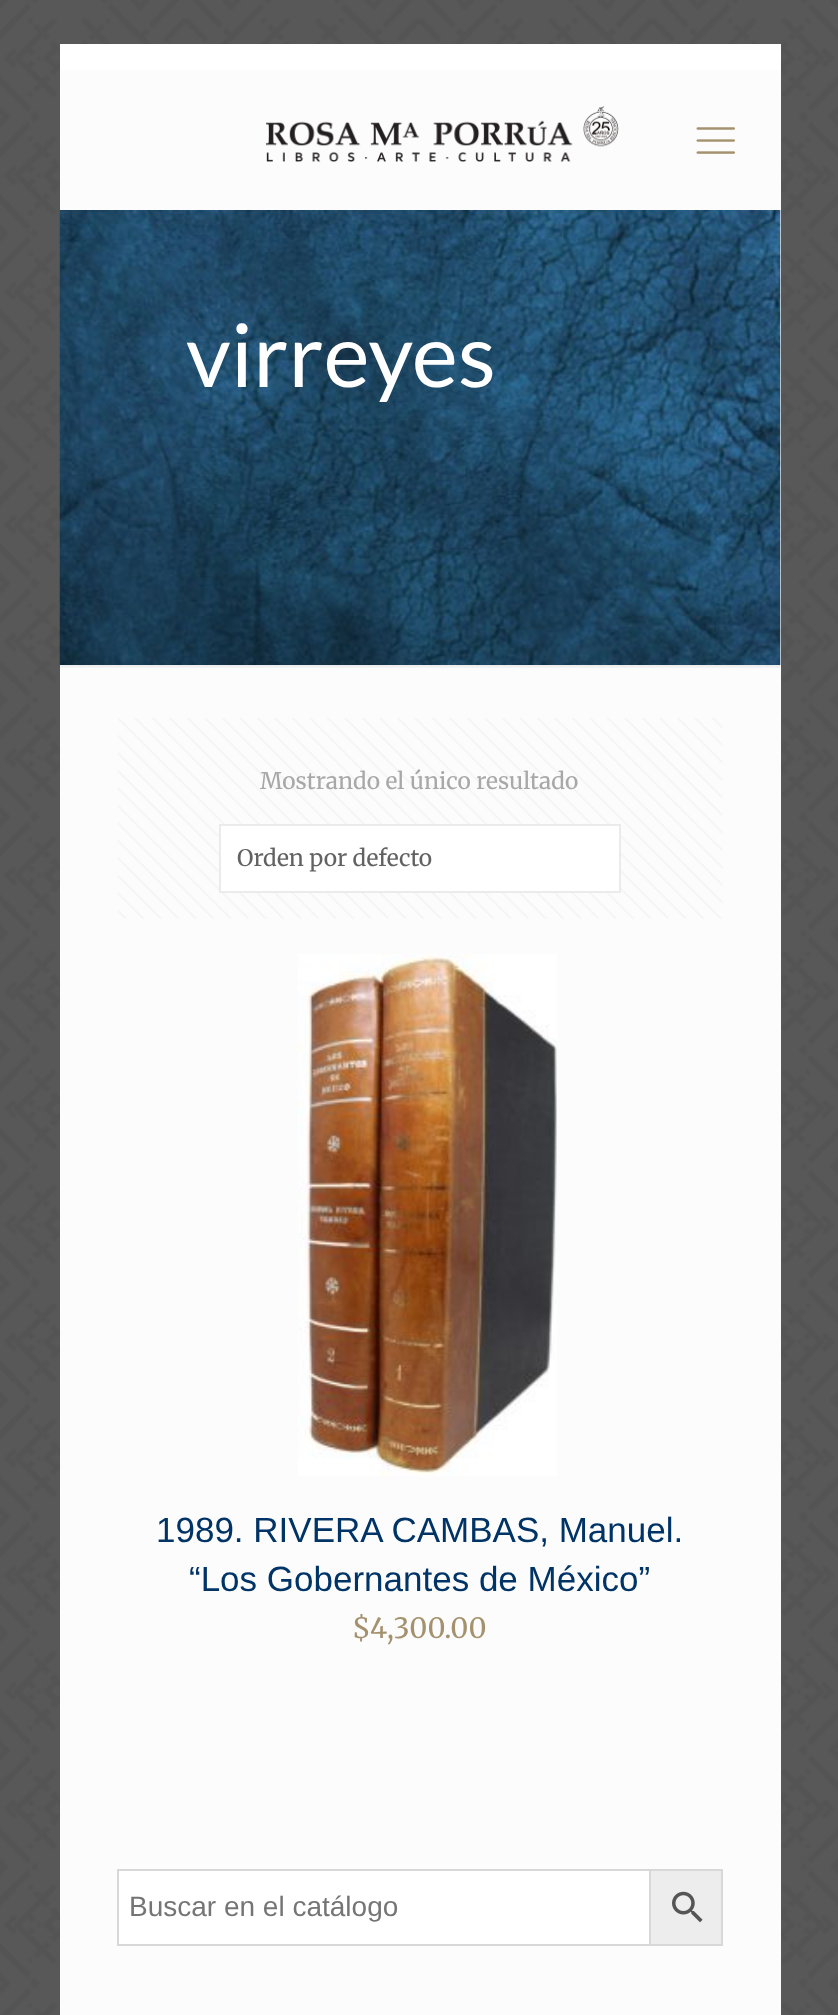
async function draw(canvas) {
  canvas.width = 838;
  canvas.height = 2015;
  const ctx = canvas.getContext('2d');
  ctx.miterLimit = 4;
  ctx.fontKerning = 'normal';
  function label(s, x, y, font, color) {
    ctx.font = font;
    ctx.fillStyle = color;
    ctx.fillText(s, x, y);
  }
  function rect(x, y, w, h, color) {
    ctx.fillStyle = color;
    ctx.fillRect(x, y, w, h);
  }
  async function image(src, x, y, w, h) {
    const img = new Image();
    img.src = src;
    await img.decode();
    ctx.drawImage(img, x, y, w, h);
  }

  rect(0, 0, 838, 2015, '#fff');
  await image('assets/img1.png', 0, 0, 838, 2015);
  rect(60, 70, 721, 1945, '#fcfcfc');
  rect(60, 44, 721, 26, '#fff');
  await image('assets/img2.png', 266, 106, 353, 56);
  await image('assets/img3.png', 696, 127, 39, 27);
  rect(780, 210, 1, 455, '#eaeaea');
  await image('assets/img4.png', 59, 210, 722, 455);
  label('virreyes', 186, 387, '87.5px Lato', '#fff');
  await image('assets/img5.png', 60, 665, 720, 3);
  await image('assets/img6.png', 118, 718, 605, 201);
  label('Mostrando el único resultado', 260, 789, '22.75px Merriweather', '#a8a8a8');
  ctx.fillStyle = '#fff';
  ctx.beginPath();
  ctx.rect(220, 825, 400, 67);
  ctx.fill();
  ctx.strokeStyle = '#ebebeb';
  ctx.lineWidth = 2;
  ctx.stroke();
  label('Orden por defecto', 237, 866, '22.75px Merriweather', '#626262');
  await image('assets/img7.png', 298, 954, 259, 522);
  label('1989. RIVERA CAMBAS, Manuel.', 156, 1542, '35px Liberation Sans', '#036');
  label('“Los Gobernantes de México”', 189, 1591, '35px Liberation Sans', '#036');
  label('$', 352, 1638, '28px Merriweather', '#a4916d');
  label('4,300.00', 370, 1638, '28px Merriweather', '#a4916d');
  ctx.fillStyle = '#ededed';
  ctx.beginPath();
  ctx.rect(650, 1870, 72, 75);
  ctx.fill();
  ctx.strokeStyle = '#d8d8d8';
  ctx.stroke();
  ctx.fillStyle = '#fff';
  ctx.beginPath();
  ctx.rect(118, 1870, 532, 75);
  ctx.fill();
  ctx.stroke();
  label('Buscar en el catálogo', 129, 1916, '28px Liberation Sans', '#757575');
  await image('assets/img8.png', 672, 1891, 31, 32);
}

draw(document.querySelector('canvas'));
